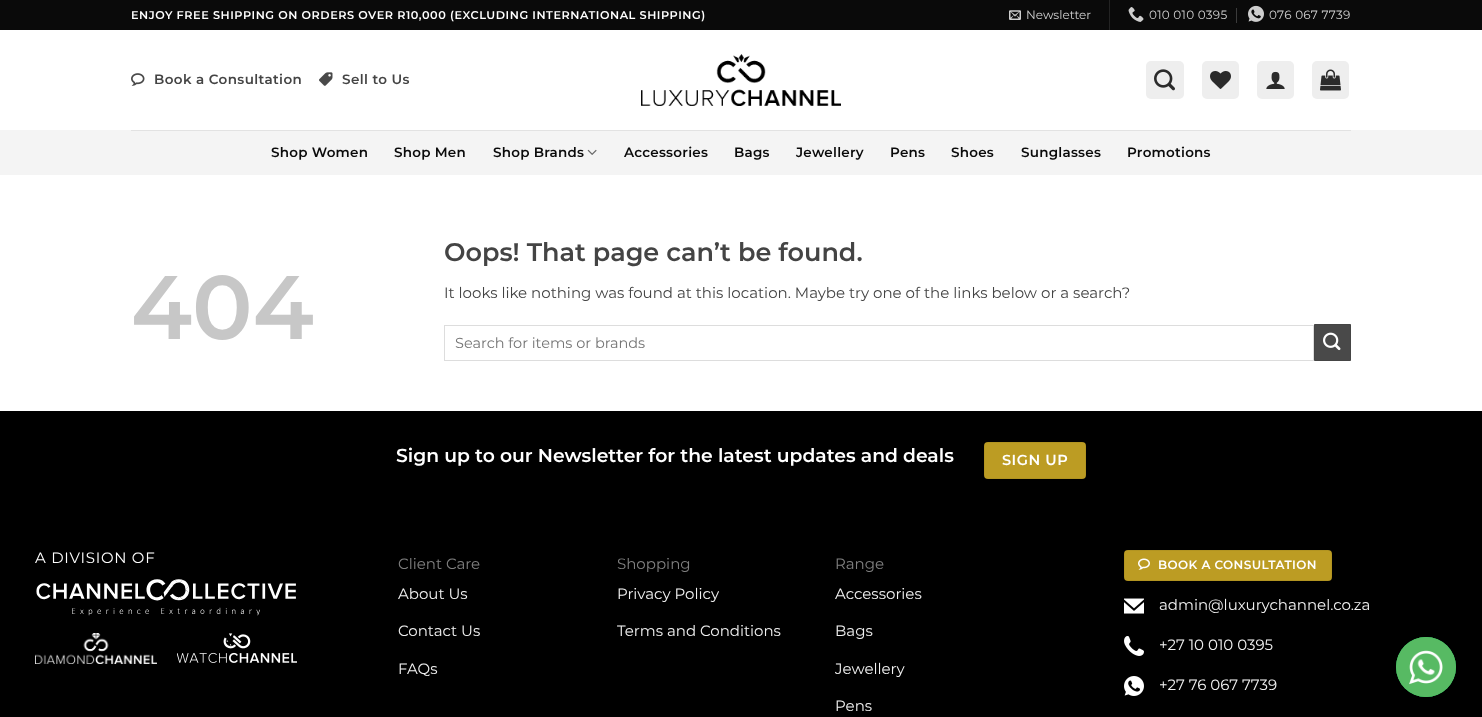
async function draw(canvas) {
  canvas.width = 1482;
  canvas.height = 717;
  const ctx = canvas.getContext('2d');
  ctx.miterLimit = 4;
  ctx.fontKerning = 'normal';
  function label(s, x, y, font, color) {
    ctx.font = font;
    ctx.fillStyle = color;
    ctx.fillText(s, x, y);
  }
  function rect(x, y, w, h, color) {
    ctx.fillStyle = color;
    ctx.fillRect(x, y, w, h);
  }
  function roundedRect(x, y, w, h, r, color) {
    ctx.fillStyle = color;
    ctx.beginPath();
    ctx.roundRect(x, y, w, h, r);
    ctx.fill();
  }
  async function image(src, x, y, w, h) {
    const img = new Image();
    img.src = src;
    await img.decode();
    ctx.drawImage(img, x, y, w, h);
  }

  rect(0, 0, 1482, 717, '#fff');
  rect(0, 0, 1482, 30, '#0a0a0a');
  ctx.letterSpacing = '0.55px';
  label('ENJOY FREE SHIPPING ON ORDERS OVER R10,000 (EXCLUDING INTERNATIONAL SHIPPING)', 131, 19, '600 11.25px Montserrat', '#fff');
  await image('assets/img1.png', 1009, 10, 12, 10);
  ctx.letterSpacing = '0px';
  label('Newsletter', 1026, 19, '12px Montserrat', '#cecece');
  rect(1109, 0, 1, 30, '#232323');
  await image('assets/img2.png', 1128, 7, 16, 15);
  ctx.letterSpacing = '0.25px';
  label('010 010 0395', 1149, 19, '12px Montserrat', '#cecece');
  rect(1236, 8, 1, 15, '#3b3b3b');
  await image('assets/img3.png', 1248, 5, 16, 17);
  label('076 067 7739', 1269, 19, '12px Montserrat', '#cecece');
  await image('assets/img4.png', 131, 73, 14, 13);
  ctx.letterSpacing = '0.4px';
  label('Book a Consultation', 154, 84, '600 13.5px Montserrat', '#444');
  await image('assets/img5.png', 319, 72, 14, 14);
  label('Sell to Us', 342, 84, '600 13.5px Montserrat', '#444');
  await image('assets/img6.png', 641, 54, 200, 52);
  roundedRect(1146, 61, 38, 38, 5, '#eee');
  await image('assets/img7.png', 1154, 69, 21, 22);
  roundedRect(1202, 61, 37, 38, 5, '#eee');
  await image('assets/img8.png', 1210, 71, 21, 18);
  roundedRect(1257, 61, 37, 38, 5, '#eee');
  await image('assets/img9.png', 1266, 71, 19, 18);
  roundedRect(1312, 61, 37, 38, 5, '#eee');
  await image('assets/img10.png', 1320, 69, 21, 22);
  rect(0, 130, 1482, 45, '#f4f4f4');
  rect(131, 130, 1220, 1, '#e2e2e2');
  ctx.letterSpacing = '0.25px';
  label('Shop Women', 271, 157, '600 13.5px Montserrat', '#0a0a0a');
  label('Shop Men', 394, 157, '600 13.5px Montserrat', '#0a0a0a');
  label('Shop Brands', 493, 157, '600 13.5px Montserrat', '#0a0a0a');
  await image('assets/img11.png', 587, 149, 10, 6);
  label('Accessories', 624, 157, '600 13.5px Montserrat', '#0a0a0a');
  label('Bags', 734, 157, '600 13.5px Montserrat', '#0a0a0a');
  label('Jewellery', 796, 157, '600 13.5px Montserrat', '#0a0a0a');
  label('Pens', 890, 157, '600 13.5px Montserrat', '#0a0a0a');
  label('Shoes', 951, 157, '600 13.5px Montserrat', '#0a0a0a');
  label('Sunglasses', 1021, 157, '600 13.5px Montserrat', '#0a0a0a');
  label('Promotions', 1127, 157, '600 13.5px Montserrat', '#0a0a0a');
  ctx.letterSpacing = '0px';
  label('404', 131, 339, '600 90px Montserrat', '#c7c7c7');
  label('Oops! That page can’t be found.', 444, 261, '600 25.5px Montserrat', '#444');
  label('It looks like nothing was found at this location. Maybe try one of the links below or a search?', 444, 298, '15px Montserrat', '#444');
  ctx.strokeStyle = '#ddd';
  ctx.strokeRect(444.5, 325.5, 869, 35);
  label('Search for items or brands', 455, 348, '14.5px Montserrat', '#757575');
  ctx.fillStyle = '#494949';
  ctx.beginPath();
  ctx.rect(1314.5, 324.5, 36, 36);
  ctx.fill();
  ctx.strokeStyle = '#454545';
  ctx.stroke();
  await image('assets/img12.png', 1323, 332, 18, 19);
  rect(0, 411, 1482, 306, '#000');
  label('Sign up to our Newsletter for the latest updates and deals', 396, 462, '600 18.75px Montserrat', '#fff');
  roundedRect(984, 442, 102, 37, 4, '#bc9c23');
  ctx.strokeStyle = '#0000000d';
  ctx.strokeRect(984.5, 442.5, 101, 36);
  ctx.letterSpacing = '0.5px';
  label('SIGN UP', 1002, 465, '600 14.5px Montserrat', '#fff');
  ctx.letterSpacing = '0.75px';
  label('A DIVISION OF', 35, 563, '15px Montserrat', '#fff');
  await image('assets/img13.png', 36, 579, 260, 37);
  await image('assets/img14.png', 35, 633, 122, 31);
  await image('assets/img15.png', 177, 633, 120, 30);
  ctx.letterSpacing = '0px';
  label('Client Care', 398, 569, '15px Montserrat', '#808080');
  label('About Us', 398, 599, '15px Montserrat', '#f1f1f1');
  label('Contact Us', 398, 636, '15px Montserrat', '#f1f1f1');
  label('FAQs', 398, 674, '15px Montserrat', '#f1f1f1');
  label('Shopping', 617, 569, '15px Montserrat', '#808080');
  label('Privacy Policy', 617, 599, '15px Montserrat', '#f1f1f1');
  label('Terms and Conditions', 617, 636, '15px Montserrat', '#f1f1f1');
  label('Range', 835, 569, '15px Montserrat', '#808080');
  label('Accessories', 835, 599, '15px Montserrat', '#f1f1f1');
  label('Bags', 835, 636, '15px Montserrat', '#f1f1f1');
  label('Jewellery', 835, 674, '15px Montserrat', '#f1f1f1');
  label('Pens', 835, 711, '15px Montserrat', '#f1f1f1');
  roundedRect(1124, 550, 208, 31, 4, '#bc9c23');
  ctx.strokeRect(1124.5, 550.5, 207, 30);
  await image('assets/img16.png', 1138, 558, 12, 12);
  ctx.letterSpacing = '0.4px';
  label('BOOK A CONSULTATION', 1158, 569, '600 12px Montserrat', '#fff');
  await image('assets/img17.png', 1124, 598, 20, 16);
  ctx.letterSpacing = '0px';
  label('admin@luxurychannel.co.za', 1159, 610, '15px Montserrat', '#f1f1f1');
  await image('assets/img18.png', 1124, 636, 20, 20);
  label('+27 10 010 0395', 1159, 650, '15px Montserrat', '#f1f1f1');
  await image('assets/img19.png', 1124, 676, 20, 20);
  label('+27 76 067 7739', 1159, 690, '15px Montserrat', '#f1f1f1');
  ctx.fillStyle = '#25d366';
  ctx.beginPath();
  ctx.arc(1426, 667, 30, 0, 2 * Math.PI);
  ctx.fill();
  await image('assets/img20.png', 1396, 637, 60, 60);
}

draw(document.querySelector('canvas'));
